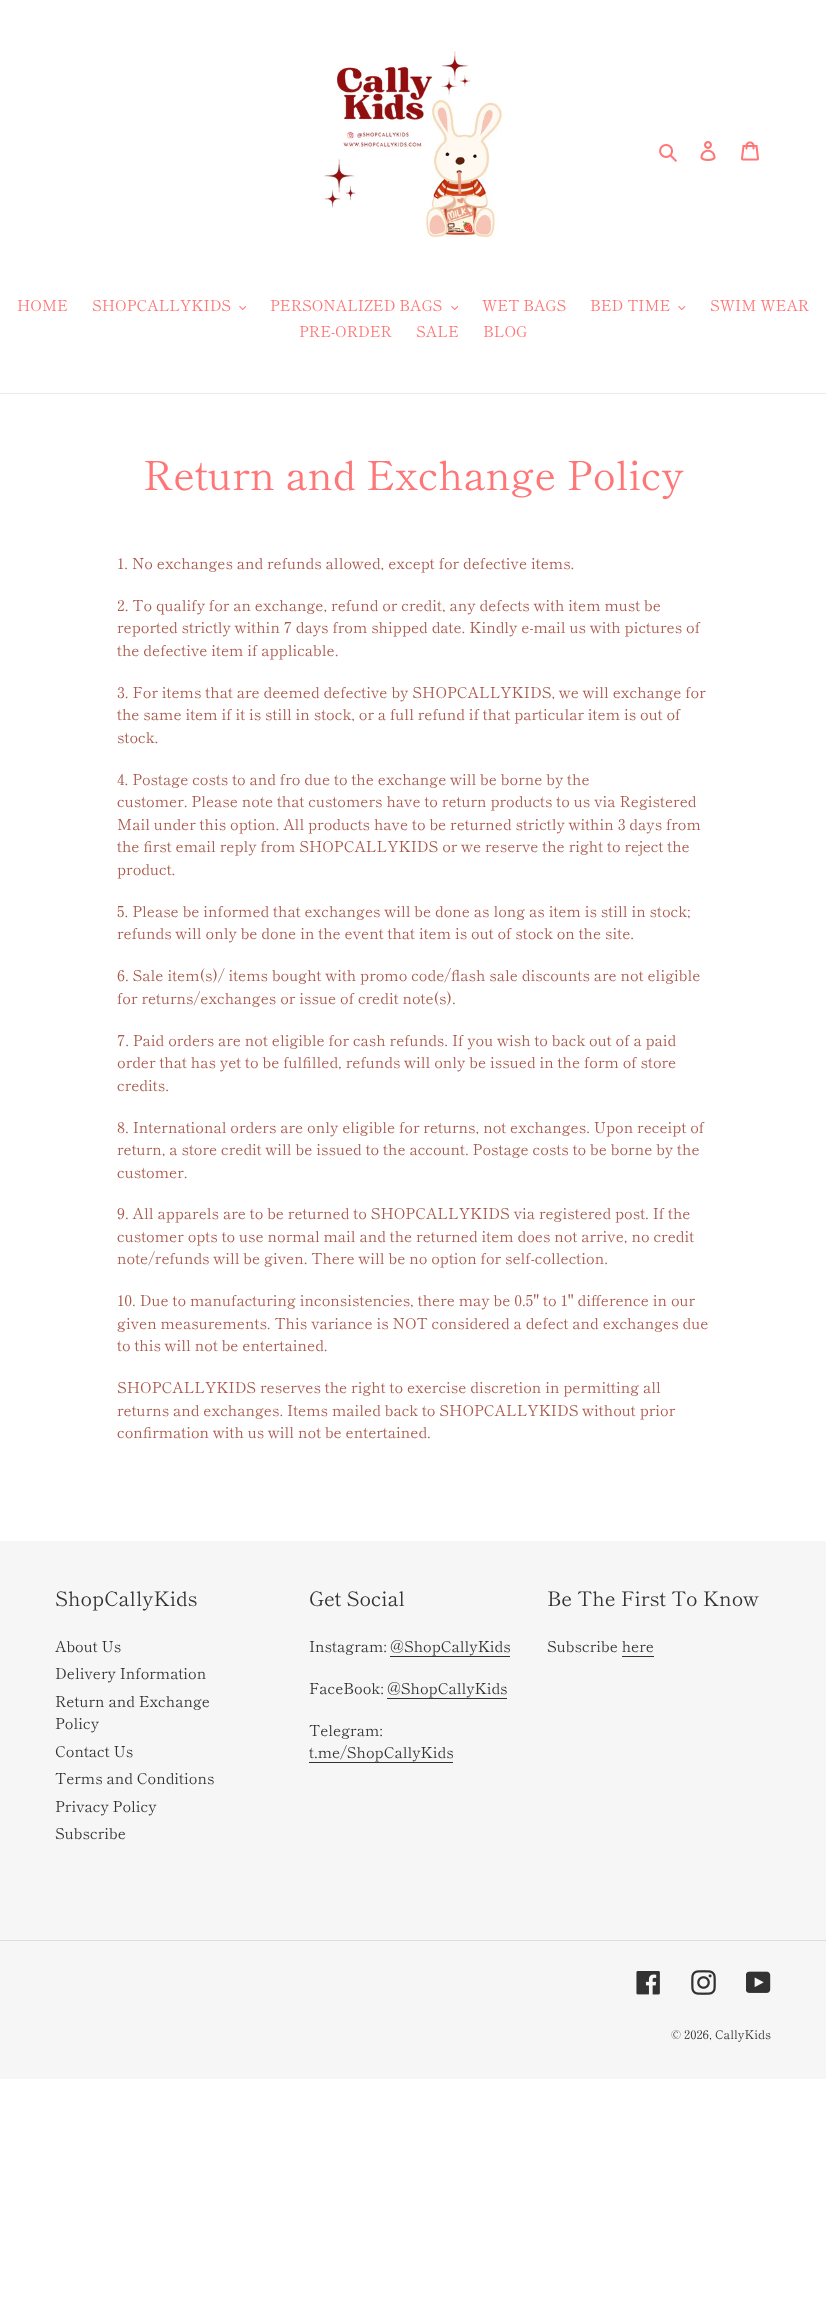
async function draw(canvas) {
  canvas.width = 826;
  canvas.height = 2302;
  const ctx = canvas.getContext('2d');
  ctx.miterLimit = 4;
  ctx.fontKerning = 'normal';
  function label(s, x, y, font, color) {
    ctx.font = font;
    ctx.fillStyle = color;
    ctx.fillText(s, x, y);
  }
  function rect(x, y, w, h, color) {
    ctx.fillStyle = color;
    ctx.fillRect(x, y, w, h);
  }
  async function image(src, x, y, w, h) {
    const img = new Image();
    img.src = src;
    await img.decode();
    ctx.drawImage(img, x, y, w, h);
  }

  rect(0, 0, 826, 2302, '#fff');
  await image('assets/img1.png', 323, 51, 179, 187);
  await image('assets/img2.png', 659, 144, 18, 18);
  await image('assets/img3.png', 700, 141, 16, 20);
  await image('assets/img4.png', 741, 141, 18, 20);
  rect(0, 393, 826, 1, '#ebebeb');
  label('HOME', 17, 311, '15px Shippori Mincho', '#ff7676');
  label('SHOPCALLYKIDS', 92, 311, '15px Shippori Mincho', '#ff7676');
  await image('assets/img5.png', 239, 306, 7, 4);
  label('PERSONALIZED BAGS', 270, 311, '15px Shippori Mincho', '#ff7676');
  await image('assets/img5.png', 451, 306, 7, 4);
  label('WET BAGS', 482, 311, '15px Shippori Mincho', '#ff7676');
  label('BED TIME', 590, 311, '15px Shippori Mincho', '#ff7676');
  await image('assets/img6.png', 678, 306, 8, 4);
  label('SWIM WEAR', 710, 311, '15px Shippori Mincho', '#ff7676');
  label('PRE-ORDER', 299, 337, '15px Shippori Mincho', '#ff7676');
  label('SALE', 416, 337, '15px Shippori Mincho', '#ff7676');
  label('BLOG', 483, 337, '15px Shippori Mincho', '#ff7676');
  label('Return and Exchange Policy', 143, 490, '40px Shippori Mincho', '#ff7676');
  label('1. No exchanges and refunds allowed, except for defective items.', 117, 569, '15px Shippori Mincho', '#a9584b');
  label('2. To qualify for an exchange, refund or credit, any defects with item must be', 117, 611, '15px Shippori Mincho', '#a9584b');
  label('reported strictly within 7 days from shipped date. Kindly e-mail us with pictures of', 117, 633, '15px Shippori Mincho', '#a9584b');
  label('the defective item if applicable.', 117, 656, '15px Shippori Mincho', '#a9584b');
  label('3. For items that are deemed defective by SHOPCALLYKIDS, we will exchange for', 117, 698, '15px Shippori Mincho', '#a9584b');
  label('the same item if it is still in stock, or a full refund if that particular item is out of', 117, 720, '15px Shippori Mincho', '#a9584b');
  label('stock.', 117, 743, '15px Shippori Mincho', '#a9584b');
  label('4. Postage costs to and fro due to the exchange will be borne by the', 117, 785, '15px Shippori Mincho', '#a9584b');
  label('customer. Please note that customers have to return products to us via Registered', 117, 807, '15px Shippori Mincho', '#a9584b');
  label('Mail under this option. All products have to be returned strictly within 3 days from', 117, 830, '15px Shippori Mincho', '#a9584b');
  label('the first email reply from SHOPCALLYKIDS or we reserve the right to reject the', 117, 852, '15px Shippori Mincho', '#a9584b');
  label('product.', 117, 875, '15px Shippori Mincho', '#a9584b');
  label('5. Please be informed that exchanges will be done as long as item is still in stock;', 117, 917, '15px Shippori Mincho', '#a9584b');
  label('refunds will only be done in the event that item is out of stock on the site.', 117, 939, '15px Shippori Mincho', '#a9584b');
  label('6. Sale item(s)/ items bought with promo code/flash sale discounts are not eligible', 117, 981, '15px Shippori Mincho', '#a9584b');
  label('for returns/exchanges or issue of credit note(s).', 117, 1004, '15px Shippori Mincho', '#a9584b');
  label('7. Paid orders are not eligible for cash refunds. If you wish to back out of a paid', 117, 1046, '15px Shippori Mincho', '#a9584b');
  label('order that has yet to be fulfilled, refunds will only be issued in the form of store', 117, 1068, '15px Shippori Mincho', '#a9584b');
  label('credits.', 117, 1091, '15px Shippori Mincho', '#a9584b');
  label('8. International orders are only eligible for returns, not exchanges. Upon receipt of', 117, 1133, '15px Shippori Mincho', '#a9584b');
  label('return, a store credit will be issued to the account. Postage costs to be borne by the', 117, 1155, '15px Shippori Mincho', '#a9584b');
  label('customer.', 117, 1178, '15px Shippori Mincho', '#a9584b');
  label('9. All apparels are to be returned to SHOPCALLYKIDS via registered post. If the', 117, 1219, '15px Shippori Mincho', '#a9584b');
  label('customer opts to use normal mail and the returned item does not arrive, no credit', 117, 1242, '15px Shippori Mincho', '#a9584b');
  label('note/refunds will be given. There will be no option for self-collection.', 117, 1264, '15px Shippori Mincho', '#a9584b');
  label('10. Due to manufacturing inconsistencies, there may be 0.5" to 1" difference in our', 117, 1306, '15px Shippori Mincho', '#a9584b');
  label('given measurements. This variance is NOT considered a defect and exchanges due', 117, 1329, '15px Shippori Mincho', '#a9584b');
  label('to this will not be entertained.', 117, 1351, '15px Shippori Mincho', '#a9584b');
  label('SHOPCALLYKIDS reserves the right to exercise discretion in permitting all', 117, 1393, '15px Shippori Mincho', '#a9584b');
  label('returns and exchanges. Items mailed back to SHOPCALLYKIDS without prior', 117, 1416, '15px Shippori Mincho', '#a9584b');
  label('confirmation with us will not be entertained.', 117, 1438, '15px Shippori Mincho', '#a9584b');
  rect(0, 1541, 826, 538, '#f6f6f6');
  label('ShopCallyKids', 55, 1606, '20px Shippori Mincho', '#333232');
  label('About Us', 55, 1652, '15px Shippori Mincho', '#333232');
  label('Delivery Information', 55, 1679, '15px Shippori Mincho', '#333232');
  label('Return and Exchange', 55, 1707, '15px Shippori Mincho', '#333232');
  label('Policy', 55, 1729, '15px Shippori Mincho', '#333232');
  label('Contact Us', 55, 1757, '15px Shippori Mincho', '#333232');
  label('Terms and Conditions', 55, 1784, '15px Shippori Mincho', '#333232');
  label('Privacy Policy', 55, 1812, '15px Shippori Mincho', '#333232');
  label('Subscribe', 55, 1839, '15px Shippori Mincho', '#333232');
  label('Get Social', 309, 1606, '20px Shippori Mincho', '#333232');
  label('Instagram: @ShopCallyKids', 309, 1652, '15px Shippori Mincho', '#333232');
  rect(390, 1656, 120, 1, '#333232');
  label('FaceBook: @ShopCallyKids', 309, 1694, '15px Shippori Mincho', '#333232');
  rect(387, 1698, 120, 1, '#333232');
  label('Telegram:', 309, 1736, '15px Shippori Mincho', '#333232');
  label('t.me/ShopCallyKids', 309, 1758, '15px Shippori Mincho', '#333232');
  rect(309, 1762, 144, 1, '#333232');
  label('Be The First To Know', 547, 1606, '20px Shippori Mincho', '#333232');
  label('Subscribe here', 547, 1652, '15px Shippori Mincho', '#333232');
  rect(622, 1656, 32, 1, '#333232');
  rect(0, 1940, 826, 1, '#ddd');
  await image('assets/img7.png', 636, 1971, 24, 24);
  await image('assets/img8.png', 691, 1970, 25, 25);
  await image('assets/img9.png', 746, 1971, 25, 22);
  label('© 2026, CallyKids', 671, 2039, '12px Shippori Mincho', '#333232');
}

draw(document.querySelector('canvas'));
